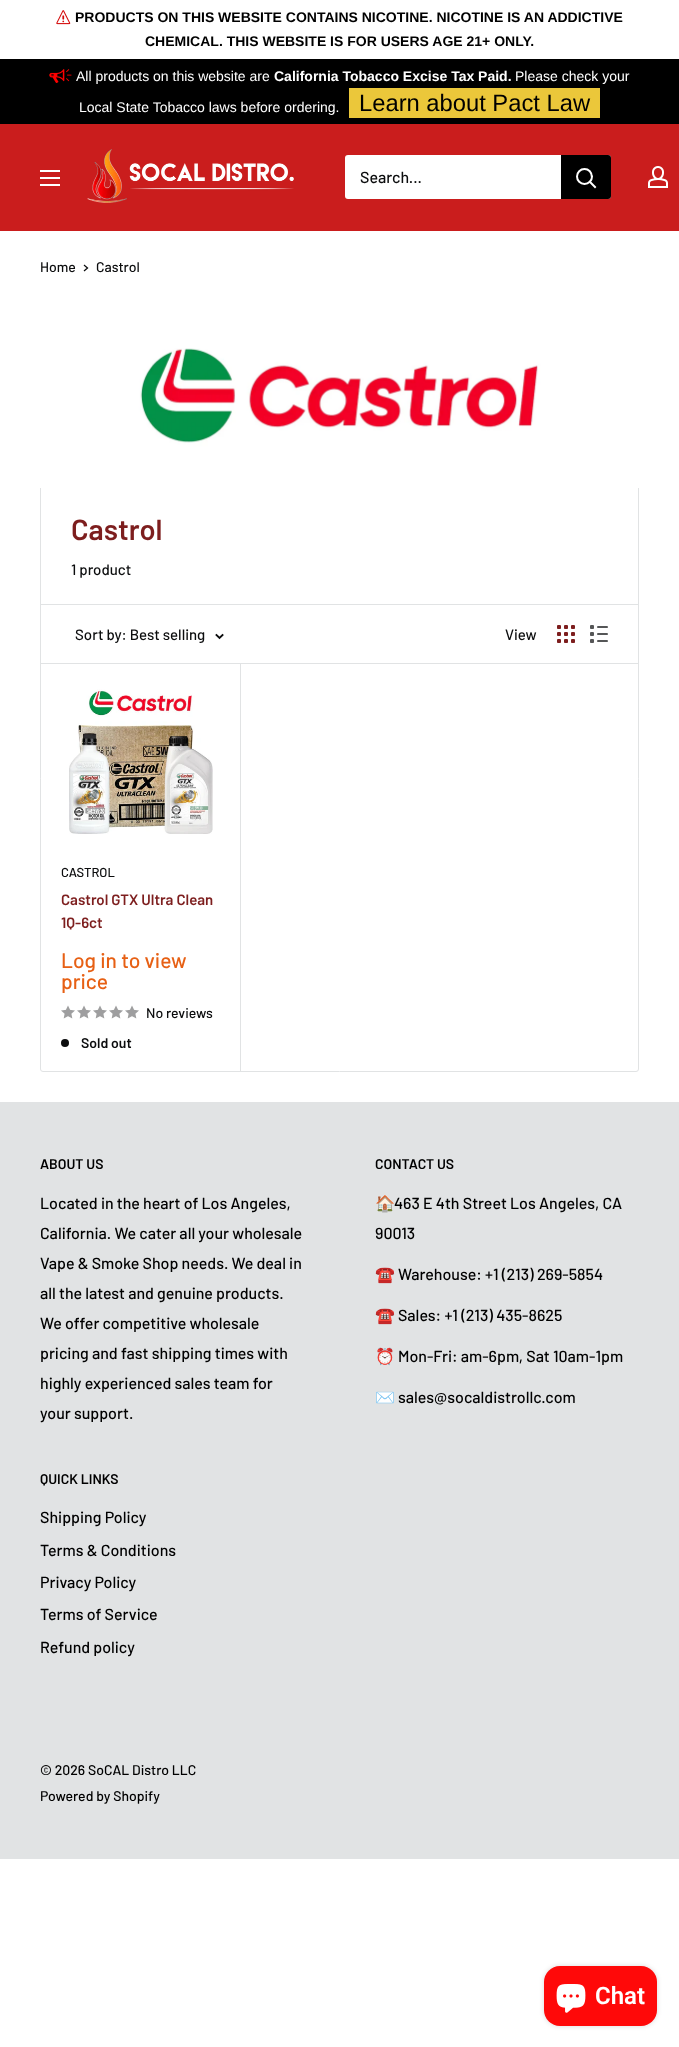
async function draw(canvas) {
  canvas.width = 679;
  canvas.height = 2047;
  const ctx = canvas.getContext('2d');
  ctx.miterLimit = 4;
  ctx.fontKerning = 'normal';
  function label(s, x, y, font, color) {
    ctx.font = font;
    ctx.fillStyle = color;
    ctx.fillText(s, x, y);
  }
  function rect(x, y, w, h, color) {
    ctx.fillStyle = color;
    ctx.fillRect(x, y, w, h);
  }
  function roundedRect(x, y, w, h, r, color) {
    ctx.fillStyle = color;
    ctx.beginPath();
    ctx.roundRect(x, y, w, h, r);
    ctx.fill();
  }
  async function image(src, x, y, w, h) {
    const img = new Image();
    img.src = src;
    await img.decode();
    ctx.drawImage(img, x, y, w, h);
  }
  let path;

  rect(0, 0, 679, 2047, '#fff');
  await image('assets/img1.png', 56, 10, 15, 15);
  label('PRODUCTS ON THIS WEBSITE CONTAINS NICOTINE. NICOTINE IS AN ADDICTIVE', 75, 22, 'bold 14px Liberation Sans', '#000');
  label('CHEMICAL. THIS WEBSITE IS FOR USERS AGE 21+ ONLY.', 145, 46, 'bold 14px Liberation Sans', '#000');
  rect(0, 59, 679, 65, '#000');
  await image('assets/img2.png', 49, 69, 23, 14);
  label('All products on this website are', 76, 81, '14px Liberation Sans', '#fff');
  label('California Tobacco Excise Tax Paid.', 274, 81, 'bold 14px Liberation Sans', '#fff');
  label('Please check your', 515, 81, '14px Liberation Sans', '#fff');
  label('Local State Tobacco laws before ordering.', 79, 112, '14px Liberation Sans', '#fff');
  rect(349, 88, 251, 30, '#ebc73a');
  label('Learn about Pact Law', 359, 111, '23.75px Liberation Sans', '#000');
  rect(0, 124, 679, 107, '#ca1d1d');
  await image('assets/img3.png', 40, 170, 20, 16);
  await image('assets/img4.png', 87, 149, 207, 54);
  roundedRect(345, 155, 266, 44, 3, '#fff');
  label('Search...', 360, 183, '500 16px Barlow', '#0c0d0e');
  ctx.fillStyle = '#000';
  ctx.beginPath();
  ctx.roundRect(561, 155, 50, 44, [0, 3, 3, 0]);
  ctx.fill();
  path = new Path2D('M595 187L590 182');
  ctx.strokeStyle = '#fff';
  ctx.lineWidth = 2;
  ctx.lineCap = 'square';
  ctx.stroke(path);
  ctx.beginPath();
  ctx.arc(584.5, 176.5, 7.5, 0, 2 * Math.PI);
  ctx.stroke();
  await image('assets/img5.png', 648, 166, 20, 22);
  label('Home', 40, 272, '500 14px Barlow', '#0c0d0e');
  path = new Path2D('M84.5 265.5L87.5 268L84.5 270.5');
  ctx.strokeStyle = '#0c0d0e';
  ctx.lineWidth = 1.3;
  ctx.stroke(path);
  label('Castrol', 96, 272, '500 14px Barlow', '#0c0d0e');
  ctx.beginPath();
  ctx.roundRect(40.5, 487.5, 598, 584, [0, 0, 2.5, 2.5]);
  ctx.strokeStyle = '#e1e3e4';
  ctx.lineWidth = 1;
  ctx.stroke();
  await image('assets/img6.png', 40, 348, 599, 140);
  label('Castrol', 71, 540, '600 29px Barlow', '#7d1e1e');
  label('1 product', 71, 575, '500 15px Barlow', '#0c0d0e');
  rect(41, 604, 597, 1, '#e1e3e4');
  rect(240, 663, 1, 408, '#e1e3e4');
  rect(41, 663, 597, 1, '#e1e3e4');
  label('Sort by: Best selling', 75, 640, '500 15px Barlow', '#0c0d0e');
  path = new Path2D('M222.5 635L219.5 638L216.5 635');
  ctx.strokeStyle = '#0c0d0e';
  ctx.lineWidth = 1.9;
  ctx.stroke(path);
  label('View', 505, 640, '500 15px Barlow', '#0c0d0e');
  await image('assets/img7.png', 557, 625, 18, 18);
  await image('assets/img8.png', 590, 625, 18, 18);
  await image('assets/img9.png', 69, 689, 144, 145);
  label('CASTROL', 61, 877, '500 13px Barlow', '#0c0d0e');
  label('Castrol GTX Ultra Clean', 61, 905, '600 15px Barlow', '#7d1e1e');
  label('1Q-6ct', 61, 928, '600 15px Barlow', '#7d1e1e');
  label('Log in to view', 61, 968, '500 21px Barlow', '#e76014');
  label('price', 61, 989, '500 21px Barlow', '#e76014');
  await image('assets/img10.png', 61, 1005, 14, 14);
  await image('assets/img10.png', 77, 1005, 14, 14);
  await image('assets/img10.png', 93, 1005, 14, 14);
  await image('assets/img10.png', 109, 1005, 14, 14);
  await image('assets/img10.png', 125, 1005, 14, 14);
  label('No reviews', 146, 1018, '500 14px Barlow', '#0c0d0e');
  ctx.beginPath();
  ctx.arc(65, 1043, 4, 0, 2 * Math.PI);
  ctx.fill();
  label('Sold out', 81, 1048, '600 14px Barlow', '#0c0d0e');
  rect(0, 1102, 679, 757, '#e1e3e4');
  label('ABOUT US', 40, 1169, '600 14px Barlow', '#000');
  label('Located in the heart of Los Angeles,', 40, 1209, '500 16px Barlow', '#000');
  label('California. We cater all your wholesale', 40, 1239, '500 16px Barlow', '#000');
  label('Vape & Smoke Shop needs. We deal in', 40, 1269, '500 16px Barlow', '#000');
  label('all the latest and genuine products.', 40, 1299, '500 16px Barlow', '#000');
  label('We offer competitive wholesale', 40, 1329, '500 16px Barlow', '#000');
  label('pricing and fast shipping times with', 40, 1359, '500 16px Barlow', '#000');
  label('highly experienced sales team for', 40, 1389, '500 16px Barlow', '#000');
  label('your support.', 40, 1419, '500 16px Barlow', '#000');
  label('CONTACT US', 375, 1169, '600 14px Barlow', '#000');
  label('🏠', 375, 1209, '16px Noto Color Emoji', '#000');
  label('463 E 4th Street Los Angeles, CA', 394, 1209, '500 16px Barlow', '#000');
  label('90013', 375, 1239, '500 16px Barlow', '#000');
  label('☎️', 375, 1280, '16px Noto Color Emoji', '#000');
  label('Warehouse: +1 (213) 269-5854', 398, 1280, '500 16px Barlow', '#000');
  label('☎️', 375, 1321, '16px Noto Color Emoji', '#000');
  label('Sales: +1 (213) 435-8625', 398, 1321, '500 16px Barlow', '#000');
  label('⏰', 375, 1362, '16px Noto Color Emoji', '#000');
  label('Mon-Fri: am-6pm, Sat 10am-1pm', 398, 1362, '500 16px Barlow', '#000');
  label('✉️', 375, 1403, '16px Noto Color Emoji', '#000');
  label('sales@socaldistrollc.com', 398, 1403, '500 16px Barlow', '#000');
  label('QUICK LINKS', 40, 1484, '600 14px Barlow', '#000');
  label('Shipping Policy', 40, 1523, '500 16px Barlow', '#000');
  label('Terms & Conditions', 40, 1556, '500 16px Barlow', '#000');
  label('Privacy Policy', 40, 1588, '500 16px Barlow', '#000');
  label('Terms of Service', 40, 1620, '500 16px Barlow', '#000');
  label('Refund policy', 40, 1653, '500 16px Barlow', '#000');
  label('© 2026 SoCAL Distro LLC', 40, 1775, '500 14px Barlow', '#000');
  label('Powered by Shopify', 40, 1801, '500 14px Barlow', '#000');
  ctx.fillStyle = '#00000026';
  ctx.filter = 'blur(2.5px)';
  ctx.beginPath();
  ctx.roundRect(544, 1966, 113, 60, 16);
  ctx.fill();
  ctx.filter = 'none';
  roundedRect(544, 1966, 113, 60, 16, '#ff0909');
  await image('assets/img11.png', 556, 1984, 30, 29);
  label('Chat', 595, 2004, '600 24px Roboto', '#fff');
}

draw(document.querySelector('canvas'));
